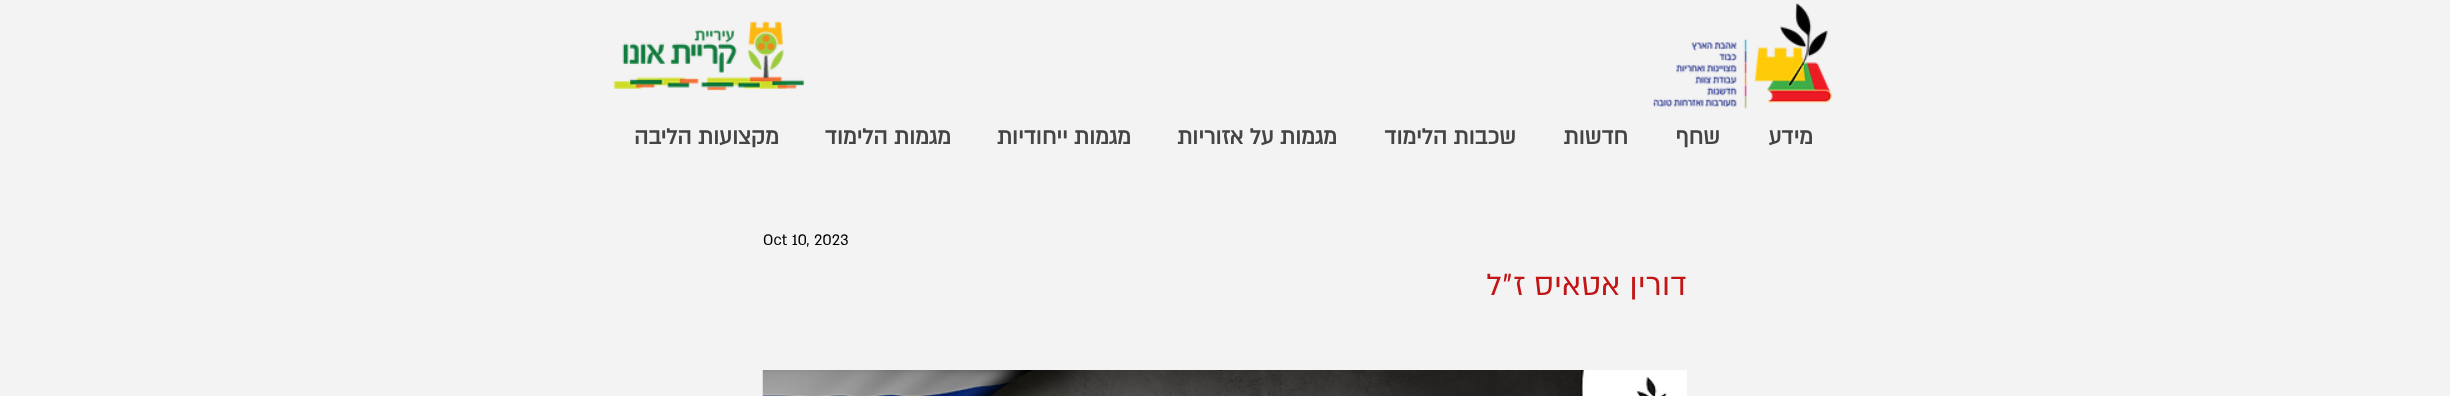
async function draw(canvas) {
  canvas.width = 2450;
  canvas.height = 396;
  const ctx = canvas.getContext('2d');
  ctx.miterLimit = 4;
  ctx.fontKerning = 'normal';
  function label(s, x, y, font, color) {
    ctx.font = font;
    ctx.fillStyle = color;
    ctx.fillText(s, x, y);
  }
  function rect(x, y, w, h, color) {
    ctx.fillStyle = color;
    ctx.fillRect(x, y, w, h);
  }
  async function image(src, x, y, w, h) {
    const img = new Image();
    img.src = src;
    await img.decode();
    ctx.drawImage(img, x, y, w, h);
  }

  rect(0, 0, 2450, 396, '#f4f3f3');
  await image('assets/img1.png', 1653, 3, 180, 106);
  await image('assets/img2.png', 613, 21, 192, 70);
  ctx.direction = 'rtl';
  label('מידע', 1813, 144, 'bold 25px "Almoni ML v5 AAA"', '#444');
  label('שחף', 1720, 144, 'bold 25px "Almoni ML v5 AAA"', '#444');
  label('חדשות', 1628, 144, 'bold 25px "Almoni ML v5 AAA"', '#444');
  label('שכבות הלימוד', 1516, 144, 'bold 25px "Almoni ML v5 AAA"', '#444');
  label('מגמות על אזוריות', 1337, 144, 'bold 25px "Almoni ML v5 AAA"', '#444');
  label('מגמות ייחודיות', 1131, 144, 'bold 25px "Almoni ML v5 AAA"', '#444');
  label('מגמות הלימוד', 951, 144, 'bold 25px "Almoni ML v5 AAA"', '#444');
  label('מקצועות הליבה', 779, 144, 'bold 25px "Almoni ML v5 AAA"', '#444');
  ctx.direction = 'ltr';
  label('Oct 10, 2023', 763, 245, '17.5px "Almoni ML v5 AAA"', '#000');
  ctx.direction = 'rtl';
  label('דורין אטאיס ז״ל', 1687, 295, '35px "Almoni ML v5 AAA"', '#c21515');
  await image('assets/img3.png', 762, 370, 925, 26);
}

draw(document.querySelector('canvas'));
